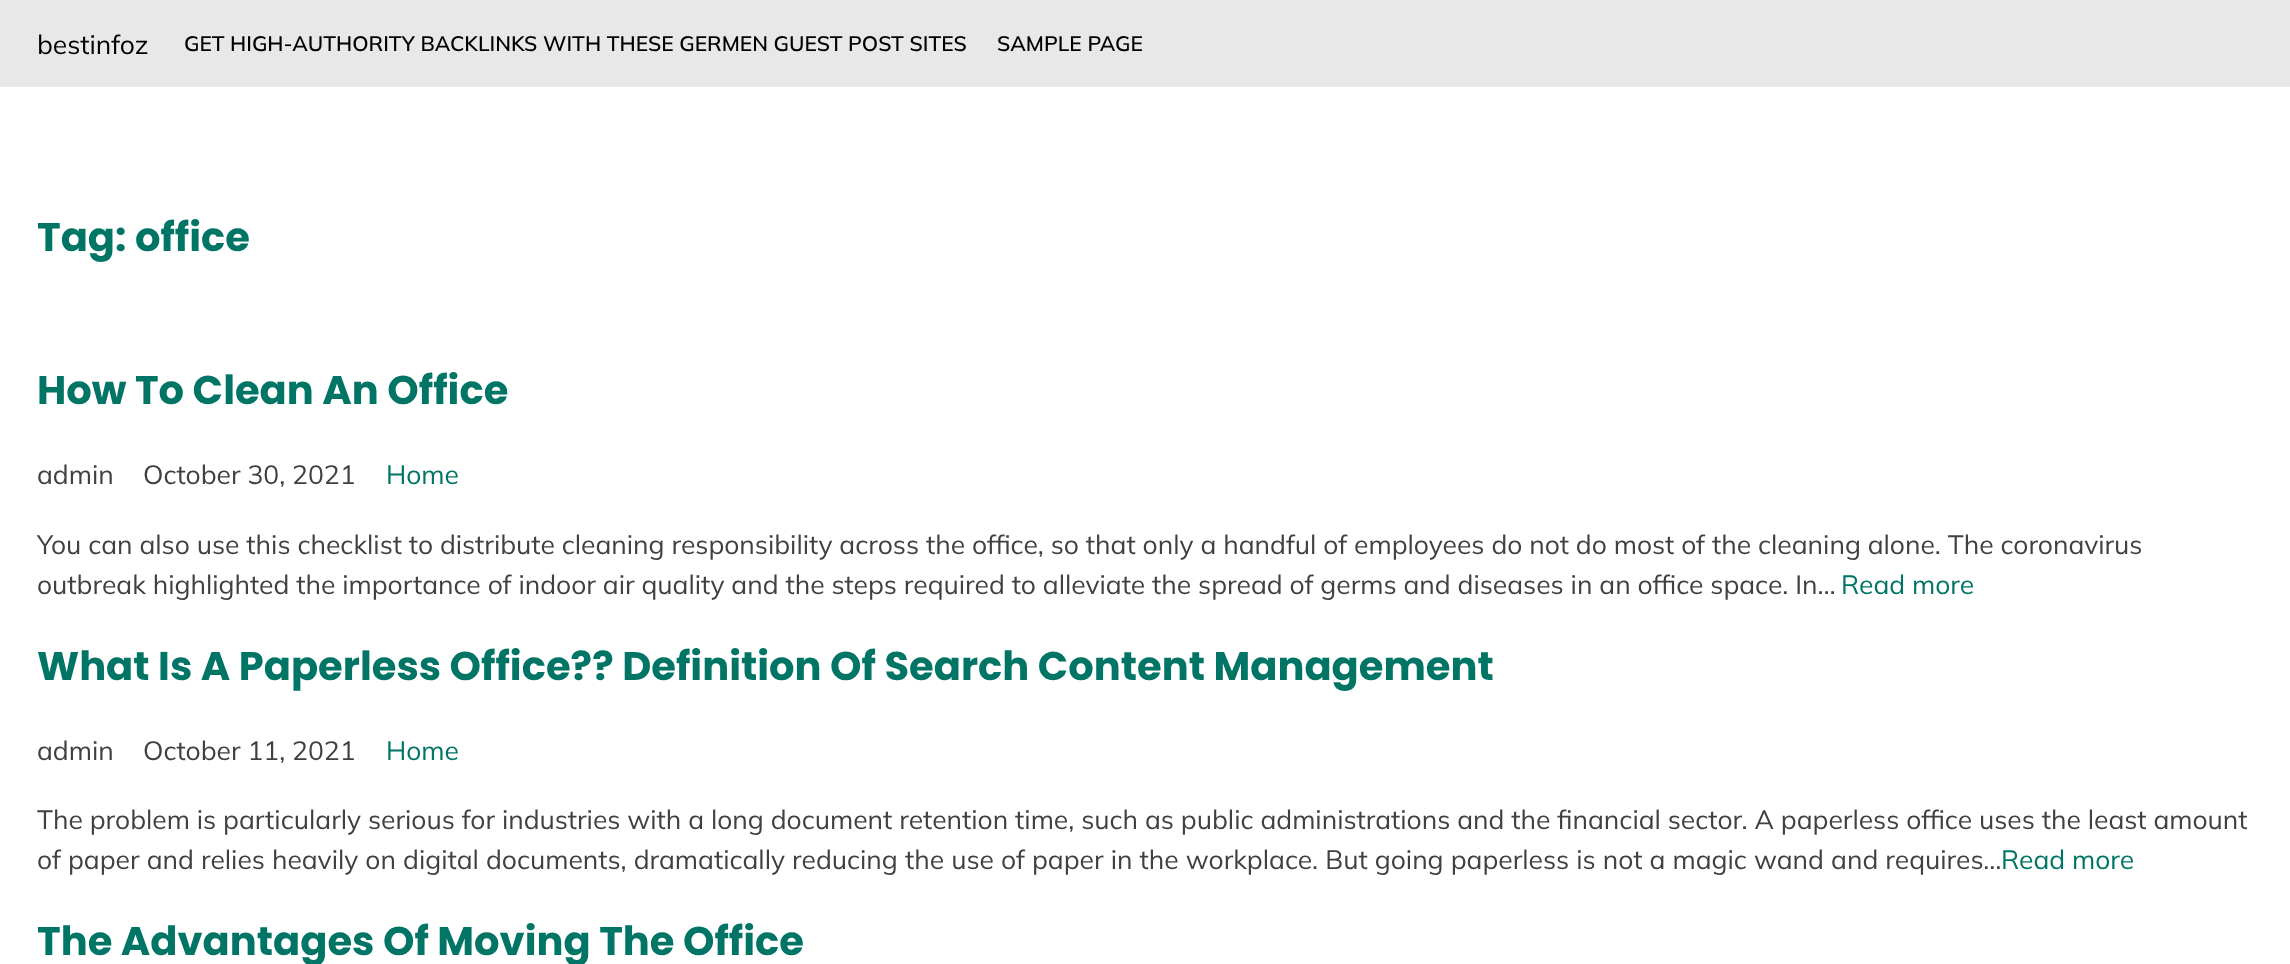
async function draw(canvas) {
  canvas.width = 2290;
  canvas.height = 964;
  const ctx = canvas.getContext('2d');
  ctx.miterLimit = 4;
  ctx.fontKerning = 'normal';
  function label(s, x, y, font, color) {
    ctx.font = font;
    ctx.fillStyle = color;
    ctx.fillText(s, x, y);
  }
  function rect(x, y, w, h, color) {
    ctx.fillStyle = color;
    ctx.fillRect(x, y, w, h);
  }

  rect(0, 0, 2290, 964, '#fff');
  rect(0, 0, 2290, 87, '#e8e8e8');
  label('bestinfoz', 37, 54, '26.45px Mulish', '#000');
  label('GET HIGH-AUTHORITY BACKLINKS WITH THESE GERMEN GUEST POST SITES', 184, 51, '600 21px Mulish', '#000');
  label('SAMPLE PAGE', 997, 51, '600 21px Mulish', '#000');
  label('Tag: office', 37, 251, 'bold 40.05px Poppins', '#007565');
  label('How To Clean An Office', 37, 404, 'bold 40.05px Poppins', '#007565');
  label('admin', 37, 484, '26.45px Mulish', '#404040');
  label('October 30, 2021', 143, 484, '26.45px Mulish', '#404040');
  label('Home', 386, 484, '26.45px Mulish', '#007565');
  label('You can also use this checklist to distribute cleaning responsibility across the office, so that only a handful of employees do not do most of the cleaning alone. The coronavirus', 37, 554, '26.45px Mulish', '#404040');
  label('outbreak highlighted the importance of indoor air quality and the steps required to alleviate the spread of germs and diseases in an office space. In…', 37, 594, '26.45px Mulish', '#404040');
  label('Read more', 1841, 594, '26.45px Mulish', '#007565');
  label('What Is A Paperless Office?? Definition Of Search Content Management', 37, 680, 'bold 40.05px Poppins', '#007565');
  label('admin', 37, 760, '26.45px Mulish', '#404040');
  label('October 11, 2021', 143, 760, '26.45px Mulish', '#404040');
  label('Home', 386, 760, '26.45px Mulish', '#007565');
  label('The problem is particularly serious for industries with a long document retention time, such as public administrations and the financial sector. A paperless office uses the least amount', 37, 829, '26.45px Mulish', '#404040');
  ctx.wordSpacing = '0.2px';
  label('of paper and relies heavily on digital documents, dramatically reducing the use of paper in the workplace. But going paperless is not a magic wand and requires…', 37, 869, '26.45px Mulish', '#404040');
  ctx.wordSpacing = '0px';
  label('Read more', 2001, 869, '26.45px Mulish', '#007565');
  label('The Advantages Of Moving The Office', 37, 955, 'bold 40.05px Poppins', '#007565');
}

draw(document.querySelector('canvas'));
